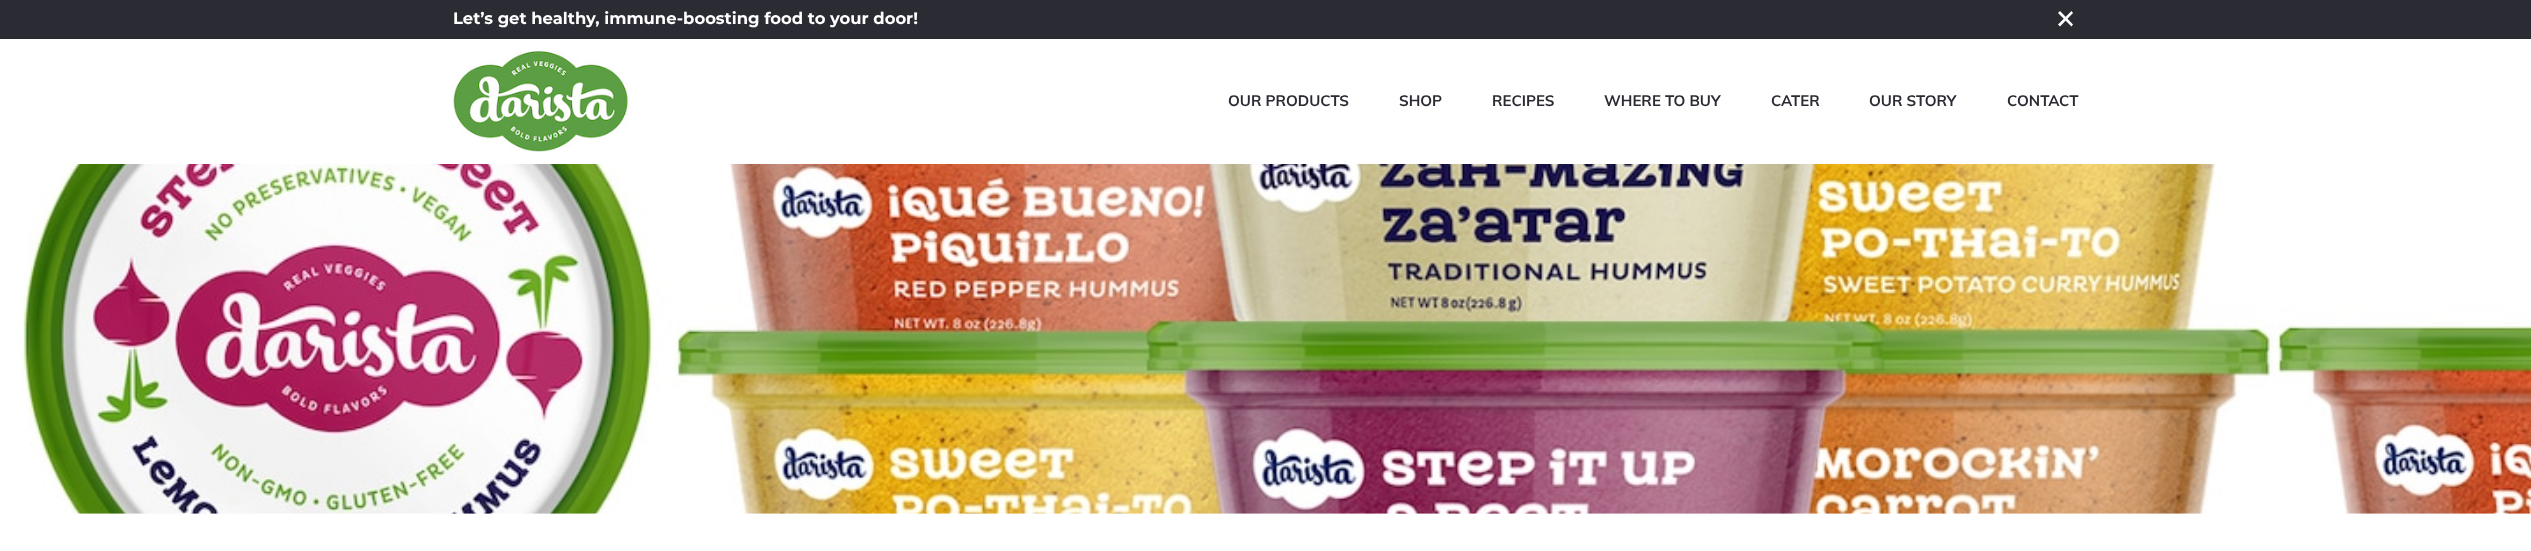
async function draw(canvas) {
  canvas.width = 2531;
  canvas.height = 551;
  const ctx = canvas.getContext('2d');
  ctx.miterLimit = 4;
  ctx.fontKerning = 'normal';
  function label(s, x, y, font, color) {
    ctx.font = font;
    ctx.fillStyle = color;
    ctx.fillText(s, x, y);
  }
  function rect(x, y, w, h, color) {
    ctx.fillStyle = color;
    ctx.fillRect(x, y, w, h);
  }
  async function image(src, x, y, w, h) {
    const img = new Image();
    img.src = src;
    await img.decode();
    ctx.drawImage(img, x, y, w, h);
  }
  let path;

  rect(0, 0, 2531, 551, '#fff');
  rect(0, 0, 2531, 38, '#2a2b33');
  rect(0, 38, 2531, 1, '#282931');
  label('Let’s get healthy, immune-boosting food to your door!', 453, 24, '100 16.4px Montserrat', '#fff');
  path = new Path2D('M2058 13L2060 11L2073 24.5L2071.5 26.5Z');
  ctx.fill(path);
  path = new Path2D('M2071.5 11L2073 13L2060 26.5L2058 24.5Z');
  ctx.fill(path);
  await image('assets/img1.png', 453, 51, 175, 101);
  label('OUR PRODUCTS', 1228, 106, 'bold 15px Muli', '#2a2b33');
  label('SHOP', 1399, 106, 'bold 15px Muli', '#2a2b33');
  label('RECIPES', 1492, 106, 'bold 15px Muli', '#2a2b33');
  label('WHERE TO BUY', 1604, 106, 'bold 15px Muli', '#2a2b33');
  label('CATER', 1771, 106, 'bold 15px Muli', '#2a2b33');
  label('OUR STORY', 1869, 106, 'bold 15px Muli', '#2a2b33');
  label('CONTACT', 2007, 106, 'bold 15px Muli', '#2a2b33');
  await image('assets/img2.png', 22, 164, 2509, 350);
}

draw(document.querySelector('canvas'));
